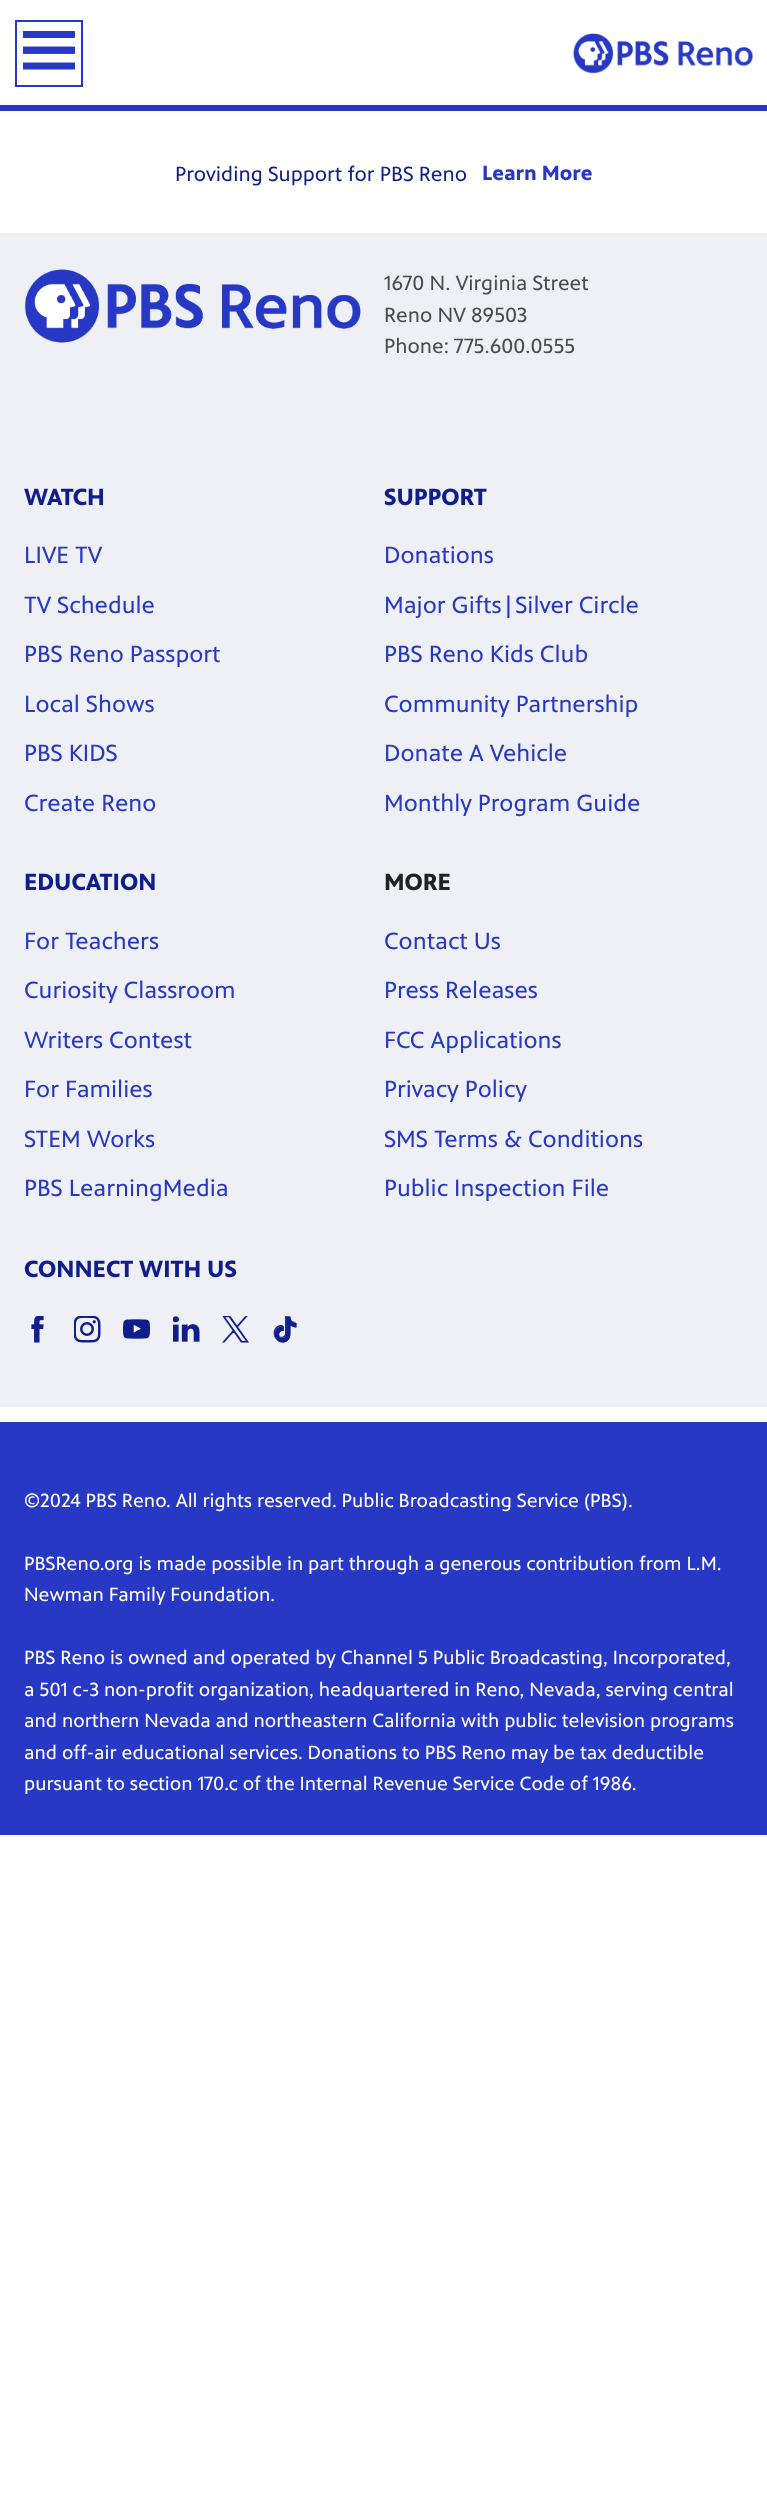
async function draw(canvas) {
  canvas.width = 767;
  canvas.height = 2515;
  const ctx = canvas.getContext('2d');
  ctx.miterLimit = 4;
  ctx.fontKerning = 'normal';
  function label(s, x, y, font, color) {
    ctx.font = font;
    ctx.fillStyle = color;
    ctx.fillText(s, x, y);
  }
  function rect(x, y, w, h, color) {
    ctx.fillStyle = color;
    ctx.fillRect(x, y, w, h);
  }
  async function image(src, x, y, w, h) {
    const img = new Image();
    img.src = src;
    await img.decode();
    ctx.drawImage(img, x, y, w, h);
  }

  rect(0, 0, 767, 2515, '#fff');
  rect(0, 105, 767, 6, '#2638c4');
  ctx.strokeStyle = '#2638c4';
  ctx.lineWidth = 2;
  ctx.strokeRect(16, 21, 66, 65);
  await image('assets/img1.png', 23, 31, 52, 39);
  await image('assets/img2.png', 573, 33, 180, 41);
  label('Providing Support for PBS Reno', 175, 181, '21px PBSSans', '#0f1e8c');
  label('Learn More', 482, 180, 'bold 21px PBSSans', '#2638c4');
  rect(0, 233, 767, 1174, '#eef0f5');
  await image('assets/img3.png', 24, 269, 337, 74);
  label('1670 N. Virginia Street', 384, 290, '21px PBSSans', '#4b4b4b');
  label('Reno NV 89503', 384, 322, '21px PBSSans', '#4b4b4b');
  label('Phone: 775.600.0555', 384, 353, '21px PBSSans', '#4b4b4b');
  label('WATCH', 24, 505, 'bold 24px PBSSans', '#0f1e8c');
  label('LIVE TV', 24, 563, '24px PBSSans', '#2638c4');
  label('TV Schedule', 24, 613, '24px PBSSans', '#2638c4');
  label('PBS Reno Passport', 24, 662, '24px PBSSans', '#2638c4');
  label('Local Shows', 24, 712, '24px PBSSans', '#2638c4');
  label('PBS KIDS', 24, 761, '24px PBSSans', '#2638c4');
  label('Create Reno', 24, 811, '24px PBSSans', '#2638c4');
  label('SUPPORT', 384, 505, 'bold 24px PBSSans', '#0f1e8c');
  label('Donations', 384, 563, '24px PBSSans', '#2638c4');
  label('Major Gifts|Silver Circle', 384, 613, '24px PBSSans', '#2638c4');
  label('PBS Reno Kids Club', 384, 662, '24px PBSSans', '#2638c4');
  label('Community Partnership', 384, 712, '24px PBSSans', '#2638c4');
  label('Donate A Vehicle', 384, 761, '24px PBSSans', '#2638c4');
  label('Monthly Program Guide', 384, 811, '24px PBSSans', '#2638c4');
  label('EDUCATION', 24, 890, 'bold 24px PBSSans', '#0f1e8c');
  label('For Teachers', 24, 949, '24px PBSSans', '#2638c4');
  label('Curiosity Classroom', 24, 998, '24px PBSSans', '#2638c4');
  label('Writers Contest', 24, 1048, '24px PBSSans', '#2638c4');
  label('For Families', 24, 1097, '24px PBSSans', '#2638c4');
  label('STEM Works', 24, 1147, '24px PBSSans', '#2638c4');
  label('PBS LearningMedia', 24, 1196, '24px PBSSans', '#2638c4');
  label('MORE', 384, 890, 'bold 24px PBSSans', '#222');
  label('Contact Us', 384, 949, '24px PBSSans', '#2638c4');
  label('Press Releases', 384, 998, '24px PBSSans', '#2638c4');
  label('FCC Applications', 384, 1048, '24px PBSSans', '#2638c4');
  label('Privacy Policy', 384, 1097, '24px PBSSans', '#2638c4');
  label('SMS Terms & Conditions', 384, 1147, '24px PBSSans', '#2638c4');
  label('Public Inspection File', 384, 1196, '24px PBSSans', '#2638c4');
  label('CONNECT WITH US', 24, 1277, 'bold 24px PBSSans', '#0f1e8c');
  await image('assets/img4.png', 31, 1316, 13, 27);
  await image('assets/img5.png', 74, 1316, 27, 27);
  await image('assets/img6.png', 123, 1319, 27, 20);
  await image('assets/img7.png', 173, 1316, 27, 26);
  await image('assets/img8.png', 222, 1316, 27, 27);
  await image('assets/img9.png', 273, 1316, 24, 27);
  rect(0, 1422, 767, 413, '#2638c4');
  label('©2024 PBS Reno. All rights reserved. Public Broadcasting Service (PBS).', 24, 1507, '19.5px PBSSans', '#fff');
  label('PBSReno.org is made possible in part through a generous contribution from L.M.', 24, 1570, '19.5px PBSSans', '#fff');
  label('Newman Family Foundation.', 24, 1601, '19.5px PBSSans', '#fff');
  label('PBS Reno is owned and operated by Channel 5 Public Broadcasting, Incorporated,', 24, 1664, '19.5px PBSSans', '#fff');
  label('a 501 c-3 non-profit organization, headquartered in Reno, Nevada, serving central', 24, 1696, '19.5px PBSSans', '#fff');
  label('and northern Nevada and northeastern California with public television programs', 24, 1727, '19.5px PBSSans', '#fff');
  label('and off-air educational services. Donations to PBS Reno may be tax deductible', 24, 1759, '19.5px PBSSans', '#fff');
  label('pursuant to section 170.c of the Internal Revenue Service Code of 1986.', 24, 1790, '19.5px PBSSans', '#fff');
}

draw(document.querySelector('canvas'));
